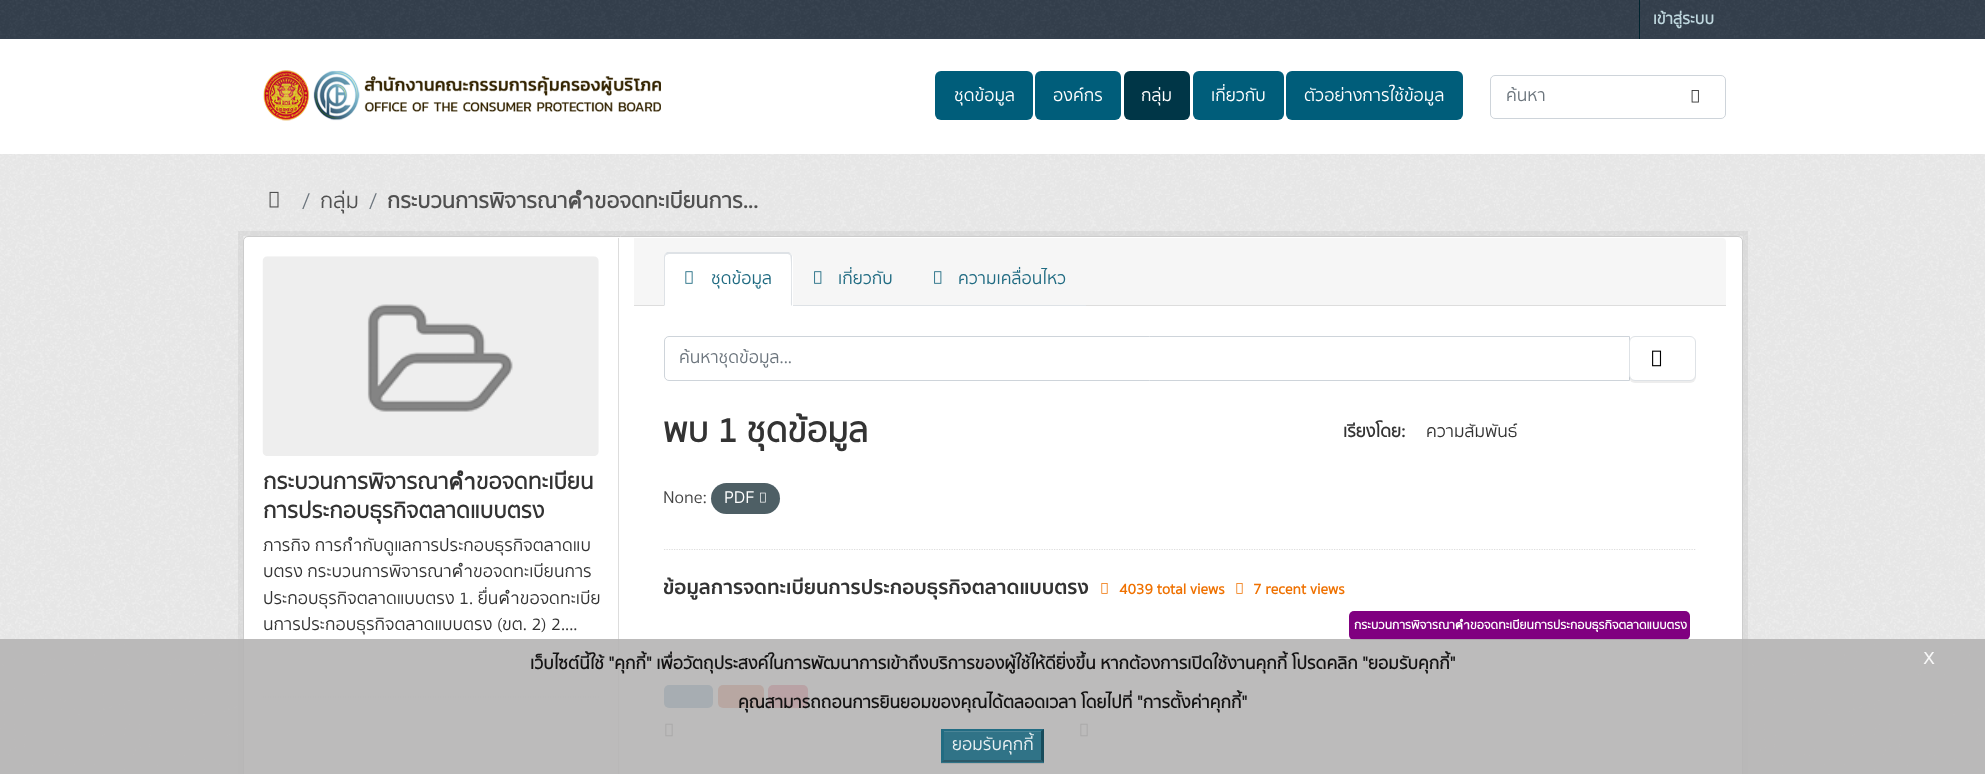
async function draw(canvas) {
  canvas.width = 1985;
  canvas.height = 774;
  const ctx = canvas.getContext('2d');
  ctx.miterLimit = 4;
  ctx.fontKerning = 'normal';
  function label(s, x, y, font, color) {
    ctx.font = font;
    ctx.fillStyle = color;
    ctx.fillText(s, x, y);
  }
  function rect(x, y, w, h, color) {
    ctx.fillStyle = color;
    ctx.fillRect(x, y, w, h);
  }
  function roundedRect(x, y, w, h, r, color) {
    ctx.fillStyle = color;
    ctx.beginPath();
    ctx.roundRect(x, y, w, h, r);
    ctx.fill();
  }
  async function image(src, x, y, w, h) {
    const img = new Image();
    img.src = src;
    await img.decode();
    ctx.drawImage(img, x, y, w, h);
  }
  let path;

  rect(0, 0, 1985, 774, '#35404e');
  await image('assets/img1.png', 0, 0, 1985, 38);
  rect(1639, 0, 1, 39, '#00232e');
  label('เข้าสู่ระบบ', 1653, 24, 'bold 16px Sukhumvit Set', '#bfd7de');
  rect(0, 39, 1985, 115, '#fff');
  await image('assets/img2.png', 263, 70, 398, 51);
  roundedRect(935, 71, 98, 49, 6, '#005d7a');
  label('ชุดข้อมูล', 954, 101, '17.5px Sukhumvit Set', '#fff');
  roundedRect(1035, 71, 86, 49, 6, '#005d7a');
  label('องค์กร', 1053, 101, '17.5px Sukhumvit Set', '#fff');
  roundedRect(1124, 71, 66, 49, 6, '#003647');
  label('กลุ่ม', 1141, 101, '17.5px Sukhumvit Set', '#fff');
  roundedRect(1193, 71, 91, 49, 6, '#005d7a');
  label('เกี่ยวกับ', 1211, 101, '17.5px Sukhumvit Set', '#fff');
  roundedRect(1286, 71, 177, 49, 6, '#005d7a');
  label('ตัวอย่างการใช้ข้อมูล', 1304, 101, '17.5px Sukhumvit Set', '#fff');
  ctx.beginPath();
  ctx.roundRect(1490.5, 75.5, 235, 43, 4.5);
  ctx.strokeStyle = '#ced4da';
  ctx.stroke();
  ctx.save();
  ctx.beginPath();
  ctx.rect(1506, 84, 204, 25);
  ctx.clip();
  label('ค้นหา', 1506, 101, '17.5px Sukhumvit Set', '#6c757d');
  ctx.restore();
  await image('assets/img3.png', 1691, 90, 8, 13);
  rect(0, 154, 1985, 620, '#eee');
  await image('assets/img4.png', 0, 154, 1985, 620);
  await image('assets/img5.png', 269, 191, 10, 17);
  label('/', 302, 208, '21.9px Sukhumvit Set', '#6c757d');
  label('กลุ่ม', 320, 208, '21.9px Sukhumvit Set', '#505050');
  label('/', 369, 208, '21.9px Sukhumvit Set', '#6c757d');
  label('กระบวนการพิจารณาคำขอจดทะเบียนการ...', 387, 208, 'bold 21.9px Sukhumvit Set', '#505050');
  ctx.strokeStyle = '#0000000d';
  ctx.lineWidth = 5;
  ctx.strokeRect(240.5, 233.5, 1505, 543);
  ctx.fillStyle = '#fff';
  ctx.beginPath();
  ctx.roundRect(243.5, 236.5, 1499, 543, 4.5);
  ctx.fill();
  ctx.strokeStyle = '#ccc';
  ctx.lineWidth = 1;
  ctx.stroke();
  await image('assets/img6.png', 262, 256, 337, 200);
  label('กระบวนการพิจารณาคำขอจดทะเบียน', 263, 489, 'bold 22.5px Sukhumvit Set', '#333');
  label('การประกอบธุรกิจตลาดแบบตรง', 263, 518, 'bold 22.5px Sukhumvit Set', '#333');
  label('ภารกิจ การกำกับดูแลการประกอบธุรกิจตลาดแบ', 263, 551, '17.5px Sukhumvit Set', '#333');
  label('บตรง กระบวนการพิจารณาคำขอจดทะเบียนการ', 263, 577, '17.5px Sukhumvit Set', '#333');
  label('ประกอบธุรกิจตลาดแบบตรง 1. ยื่นคำขอจดทะเบีย', 263, 604, '17.5px Sukhumvit Set', '#333');
  label('นการประกอบธุรกิจตลาดแบบตรง (ขต. 2) 2....', 263, 630, '17.5px Sukhumvit Set', '#333');
  path = new Path2D('M262.5 697H599');
  ctx.strokeStyle = '#ddd';
  ctx.lineWidth = 1.2;
  ctx.setLineDash([1.25, 1.25]);
  ctx.stroke(path);
  rect(618, 238, 1, 536, '#ddd');
  ctx.fillStyle = '#f6f6f6';
  ctx.beginPath();
  ctx.roundRect(634, 238, 1092, 68, [0, 4, 0, 0]);
  ctx.fill();
  rect(634, 305, 1092, 1, '#ddd');
  rect(793, 305, 293, 1, '#dee2e6');
  ctx.fillStyle = '#fff';
  ctx.beginPath();
  ctx.roundRect(664, 253, 129, 53, [5, 5, 0, 0]);
  ctx.fill();
  ctx.fillStyle = '#dee2e6';
  path = new Path2D('M669 254L666 255L665 254L667 252H789L791 254L790 255L788 254Z');
  ctx.fill(path);
  path = new Path2D('M791 254C792 255 792 257 792 258V306L791 305C791 299 792 257 790 255Z');
  ctx.fill(path);
  path = new Path2D('M664 306L665 305V257L666 255L665 254C664 255 664 257 664 258Z');
  ctx.fill(path);
  await image('assets/img7.png', 685, 271, 8, 13);
  label('ชุดข้อมูล', 711, 284, '17.5px Sukhumvit Set', '#206b82');
  await image('assets/img8.png', 814, 271, 8, 13);
  label('เกี่ยวกับ', 838, 284, '17.5px Sukhumvit Set', '#206b82');
  await image('assets/img8.png', 934, 271, 8, 13);
  label('ความเคลื่อนไหว', 958, 284, '17.5px Sukhumvit Set', '#206b82');
  path = new Path2D('M664 549.5H1696');
  ctx.stroke(path);
  ctx.beginPath();
  ctx.roundRect(664.5, 336.5, 965, 44, [4.5, 0, 0, 4.5]);
  ctx.strokeStyle = '#ced4da';
  ctx.lineWidth = 1;
  ctx.setLineDash([]);
  ctx.stroke();
  ctx.save();
  ctx.beginPath();
  ctx.rect(680, 346, 934, 25);
  ctx.clip();
  label('ค้นหาชุดข้อมูล...', 679, 363, '17.5px Sukhumvit Set', '#6c757d');
  ctx.restore();
  ctx.fillStyle = '#00000012';
  ctx.filter = 'blur(0.5px)';
  ctx.beginPath();
  ctx.roundRect(1629, 338, 67, 45, 6);
  ctx.fill();
  ctx.filter = 'none';
  ctx.fillStyle = '#fff';
  ctx.beginPath();
  ctx.roundRect(1629.5, 336.5, 66, 44, 5.5);
  ctx.fill();
  ctx.strokeStyle = '#dee2e6';
  ctx.stroke();
  await image('assets/img9.png', 1652, 350, 10, 17);
  label('พบ 1 ชุดข้อมูล', 663, 442, 'bold 35px Sukhumvit Set', '#333');
  label('เรียงโดย:', 1343, 437, 'bold 17.5px Sukhumvit Set', '#333');
  label('ความสัมพันธ์', 1426, 437, '17.5px Sukhumvit Set', '#333');
  label('None:', 663, 503, '17.5px Sukhumvit Set', '#444');
  roundedRect(711, 483, 69, 31, 15.5, '#4e5f65');
  label('PDF', 724, 503, '17.5px Sukhumvit Set', '#fff');
  await image('assets/img10.png', 760, 492, 6, 11);
  label('ข้อมูลการจดทะเบียนการประกอบธุรกิจตลาดแบบตรง', 663, 594, 'bold 20px "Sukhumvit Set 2"', '#333');
  await image('assets/img11.png', 1101, 583, 7, 11);
  label('4039 total views', 1119, 594, 'bold 15px Sukhumvit Set', '#ef7100');
  await image('assets/img11.png', 1236, 583, 7, 11);
  label('7 recent views', 1253, 594, 'bold 15px Sukhumvit Set', '#ef7100');
  roundedRect(1349, 611, 341, 29, 5, '#800080');
  label('กระบวนการพิจารณาคำขอจดทะเบียนการประกอบธุรกิจตลาดแบบตรง', 1354, 629, 'bold 12.25px Sukhumvit Set', '#fff');
  roundedRect(664, 685, 49, 23, 5, '#2e759e');
  roundedRect(718, 685, 46, 23, 5, '#d63b00');
  roundedRect(768, 685, 40, 23, 5, '#e0051e');
  await image('assets/img12.png', 665, 723, 8, 14);
  await image('assets/img12.png', 1080, 723, 8, 14);
  rect(0, 639, 1985, 135, '#b5b4b4e6');
  label('เว็บไซต์นี้ใช้ "คุกกี้" เพื่อวัตถุประสงค์ในการพัฒนาการเข้าถึงบริการของผู้ใช้ให้ดียิ่งขึ้น หากต้องการเปิดใช้งานคุกกี้ โปรดคลิก "ยอมรับคุกกี้"', 530, 669, 'bold 17.5px Sukhumvit Set', '#131212');
  label('x', 1923, 664, '25px Sukhumvit Set', '#f8f8f8');
  label('คุณสามารถถอนการยินยอมของคุณได้ตลอดเวลา โดยไปที่ "การตั้งค่าคุกกี้"', 738, 708, 'bold 17.5px Sukhumvit Set', '#131212');
  ctx.save();
  path = new Path2D('M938 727H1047V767H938ZM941 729H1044V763H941Z');
  ctx.clip(path, 'evenodd');
  ctx.fillStyle = '#00000012';
  ctx.filter = 'blur(0.5px)';
  ctx.beginPath();
  ctx.rect(941, 730, 103, 34);
  ctx.fill();
  ctx.filter = 'none';
  ctx.restore();
  rect(941, 729, 103, 34, '#206b82e6');
  rect(944, 731, 97, 1, '#4b8597');
  ctx.fillStyle = '#226c83';
  path = new Path2D('M941 729H1044L1041 731H944Z');
  ctx.fill(path);
  ctx.fillStyle = '#154757e6';
  path = new Path2D('M1044 729V762.5L1041 760V731Z');
  ctx.fill(path);
  ctx.fillStyle = '#2c5968';
  path = new Path2D('M1044 762H941L944 760H1041Z');
  ctx.fill(path);
  ctx.fillStyle = '#206b82e6';
  path = new Path2D('M941 762.5V729L944 731V760Z');
  ctx.fill(path);
  label('ยอมรับคุกกี้', 952, 750, '17.5px Sukhumvit Set', '#eaf1f3');
}

draw(document.querySelector('canvas'));
